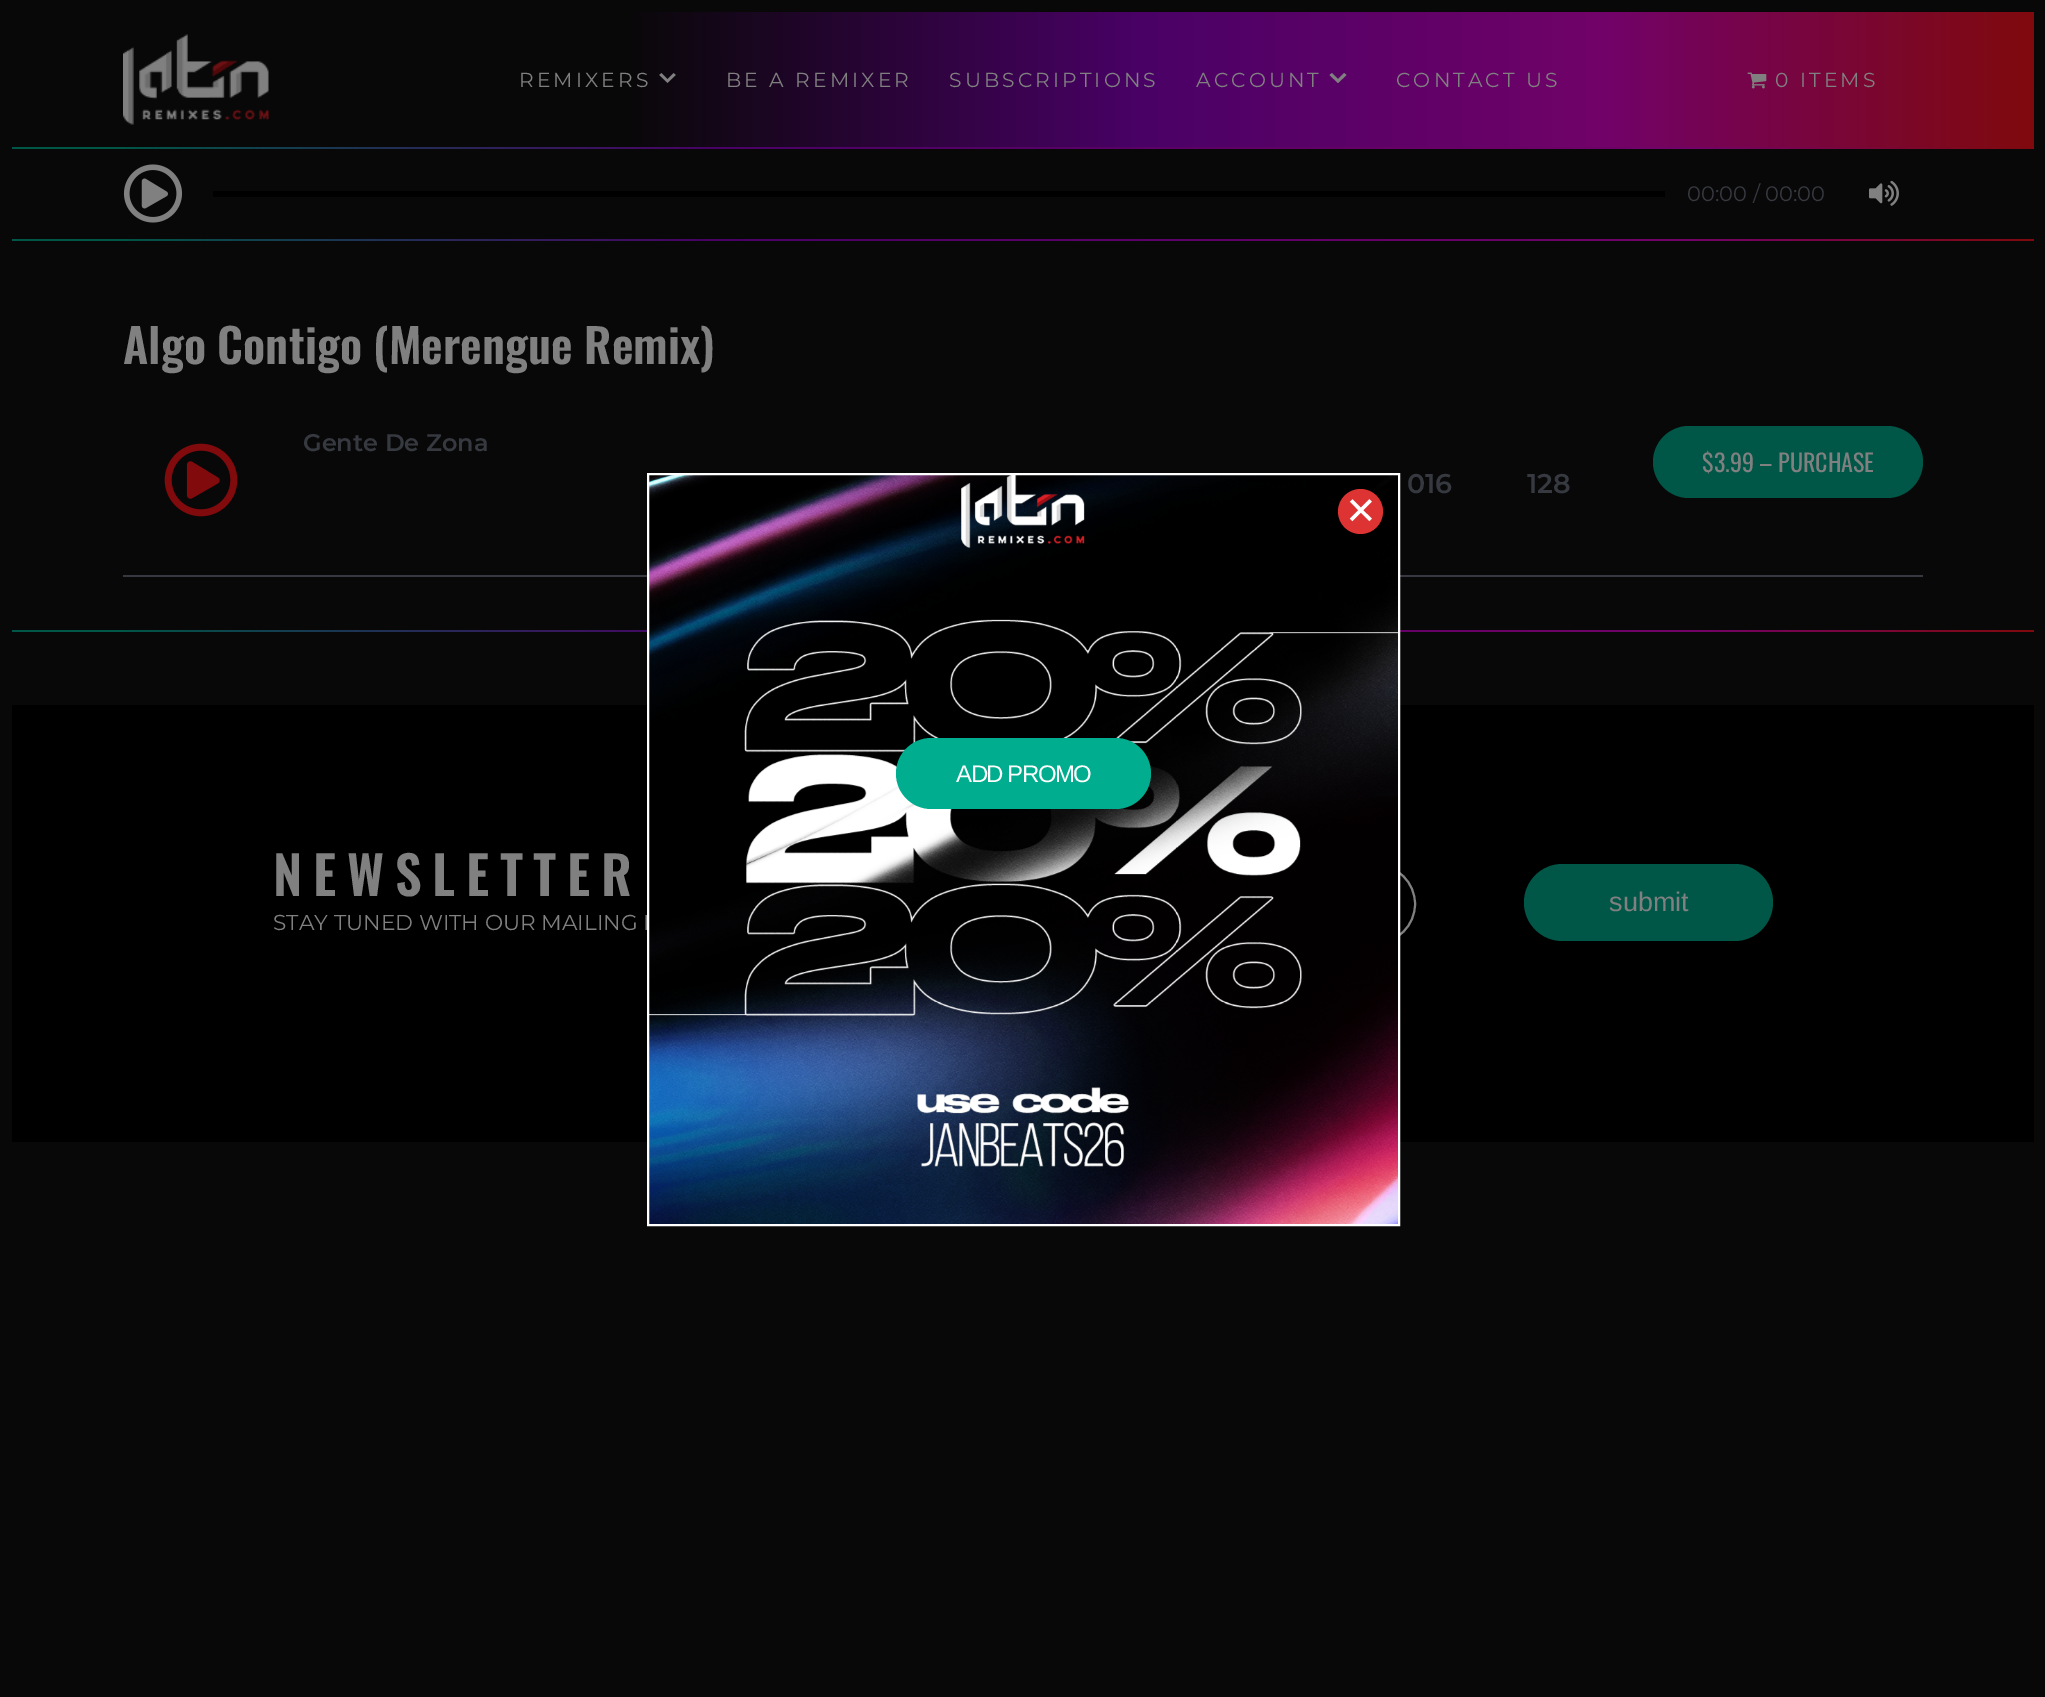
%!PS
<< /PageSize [2045 1697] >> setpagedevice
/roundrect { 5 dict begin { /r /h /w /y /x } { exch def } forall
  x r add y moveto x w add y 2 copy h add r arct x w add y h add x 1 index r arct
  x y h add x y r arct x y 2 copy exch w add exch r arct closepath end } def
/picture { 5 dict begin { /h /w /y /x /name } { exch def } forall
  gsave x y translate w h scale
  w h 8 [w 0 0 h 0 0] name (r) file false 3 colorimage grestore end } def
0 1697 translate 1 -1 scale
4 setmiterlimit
0.031 setgray
0 0 2045 1697 rectfill
gsave newpath 633 12 moveto 2034 12 lineto 2034 147 lineto 633 147 lineto closepath clip newpath
<< /ShadingType 2 /ColorSpace /DeviceRGB /Coords [12 80 2034 79] /Extend [true true] /Function << /FunctionType 3 /Domain [0 1] /Functions [<< /FunctionType 2 /Domain [0 1] /C0 [0.031 0.031 0.031] /C1 [0.031 0.031 0.031] /N 1 >> << /FunctionType 2 /Domain [0 1] /C0 [0.031 0.031 0.031] /C1 [0.29 0.004 0.4] /N 1 >> << /FunctionType 2 /Domain [0 1] /C0 [0.29 0.004 0.4] /C1 [0.447 0.008 0.408] /N 1 >> << /FunctionType 2 /Domain [0 1] /C0 [0.447 0.008 0.408] /C1 [0.502 0.039 0.051] /N 1 >>] /Bounds [0.3 0.56 0.79] /Encode [0 1 0 1 0 1 0 1] >> >> shfill grestore
(img1.rgb) 123 34 146 91 picture
/Montserrat-Regular [20.25 0 0 -20.25 0 0] selectfont
0.502 setgray
519 87 moveto 3.1 0 (REMIXERS) ashow
(img2.rgb) 659 73 17 10 picture
726 87 moveto 3.1 0 (BE A REMIXER) ashow
949 87 moveto 3.1 0 (SUBSCRIPTIONS) ashow
1196 87 moveto 3.1 0 (ACCOUNT) ashow
newpath 1338 83 moveto 1329.5 75 lineto 1332 73 lineto 1338 79 lineto 1344 73 lineto 1346.5 75 lineto closepath fill
1396 87 moveto 3.1 0 (CONTACT US) ashow
(img3.rgb) 1747 72 20 17 picture
1775 87 moveto 3.1 0 (0 ITEMS) ashow
gsave newpath 12 147 moveto 2034 147 lineto 2034 149 lineto 12 149 lineto closepath clip newpath
<< /ShadingType 2 /ColorSpace /DeviceRGB /Coords [12 148 2034 148] /Extend [true true] /Function << /FunctionType 3 /Domain [0 1] /Functions [<< /FunctionType 2 /Domain [0 1] /C0 [0 0.341 0.278] /C1 [0 0.341 0.278] /N 1 >> << /FunctionType 2 /Domain [0 1] /C0 [0 0.341 0.278] /C1 [0.29 0.004 0.4] /N 1 >> << /FunctionType 2 /Domain [0 1] /C0 [0.29 0.004 0.4] /C1 [0.447 0.008 0.408] /N 1 >> << /FunctionType 2 /Domain [0 1] /C0 [0.447 0.008 0.408] /C1 [0.502 0.039 0.051] /N 1 >>] /Bounds [0.05 0.35 0.83] /Encode [0 1 0 1 0 1 0 1] >> >> shfill grestore
(img4.rgb) 123 164 60 59 picture
0 setgray
213 191 1452 6 rectfill
/Montserrat-Regular [21 0 0 -21 0 0] selectfont
0.212 0.224 0.251 setrgbcolor
1687 201 moveto (00:00 / 00:00) show
(img5.rgb) 1869 180 30 26 picture
gsave newpath 12 239 moveto 2034 239 lineto 2034 241 lineto 12 241 lineto closepath clip newpath
<< /ShadingType 2 /ColorSpace /DeviceRGB /Coords [12 239 2034 239] /Extend [true true] /Function << /FunctionType 3 /Domain [0 1] /Functions [<< /FunctionType 2 /Domain [0 1] /C0 [0 0.341 0.278] /C1 [0 0.341 0.278] /N 1 >> << /FunctionType 2 /Domain [0 1] /C0 [0 0.341 0.278] /C1 [0.29 0.004 0.4] /N 1 >> << /FunctionType 2 /Domain [0 1] /C0 [0.29 0.004 0.4] /C1 [0.447 0.008 0.408] /N 1 >> << /FunctionType 2 /Domain [0 1] /C0 [0.447 0.008 0.408] /C1 [0.502 0.039 0.051] /N 1 >>] /Bounds [0.05 0.35 0.83] /Encode [0 1 0 1 0 1 0 1] >> >> shfill grestore
/Oswald-SemiBold [46.9 0 0 -46.9 0 0] selectfont
0.502 setgray
123 364 moveto (Algo Contigo \(Merengue Remix\)) show
0.212 0.224 0.251 setrgbcolor
123 575 1800 2 rectfill
(img6.rgb) 164 443 74 74 picture
/Montserrat-SemiBold [24 0 0 -24 0 0] selectfont
303 451 moveto (Gente De Zona) show
0 0.341 0.278 setrgbcolor
1653 426 270 72 36 roundrect fill
/Oswald-Regular [24 0 0 -24 0 0] selectfont
0.502 setgray
1702 472 moveto ($3.99 – PURCHASE) show
/Montserrat-SemiBold [27 0 0 -27 0 0] selectfont
0.212 0.224 0.251 setrgbcolor
1407 493 moveto (016) show
1527 493 moveto (128) show
gsave newpath 12 630 moveto 2034 630 lineto 2034 632 lineto 12 632 lineto closepath clip newpath
<< /ShadingType 2 /ColorSpace /DeviceRGB /Coords [12 631 2034 631] /Extend [true true] /Function << /FunctionType 3 /Domain [0 1] /Functions [<< /FunctionType 2 /Domain [0 1] /C0 [0 0.341 0.278] /C1 [0 0.341 0.278] /N 1 >> << /FunctionType 2 /Domain [0 1] /C0 [0 0.341 0.278] /C1 [0.29 0.004 0.4] /N 1 >> << /FunctionType 2 /Domain [0 1] /C0 [0.29 0.004 0.4] /C1 [0.447 0.008 0.408] /N 1 >> << /FunctionType 2 /Domain [0 1] /C0 [0.447 0.008 0.408] /C1 [0.502 0.039 0.051] /N 1 >>] /Bounds [0.05 0.35 0.83] /Encode [0 1 0 1 0 1 0 1] >> >> shfill grestore
0 setgray
12 705 2022 437 rectfill
/Montserrat-Regular [21.6 0 0 -21.6 0 0] selectfont
0.502 setgray
273 930 moveto (STAY TUNED WITH OUR MAILING L) show
2 setlinewidth
799 865 616 78 39 roundrect stroke
(img7.rgb) 649 475 749 749 picture
1 setgray
648 474 751 751 rectstroke
0.867 0.2 0.2 setrgbcolor
newpath 1360.5 511.5 22.5 0 360 arc closepath fill
/DejaVuSans-Regular [38 0 0 -38 0 0] selectfont
1 setgray
1345 524 moveto (✕) show
0 0.678 0.557 setrgbcolor
896 738 255 71 35.5 roundrect fill
/LiberationSans-Regular [24 0 0 -24 0 0] selectfont
1 setgray
956 782 moveto -1.5 0 (ADD PROMO) ashow
/Oswald-SemiBold [52.75 0 0 -52.75 0 0] selectfont
0.502 setgray
273 896 moveto 10.75 0 (NEWSLETTER) ashow
0 0.341 0.278 setrgbcolor
1524 864 249 77 38.5 roundrect fill
/LiberationSans-Regular [27 0 0 -27 0 0] selectfont
0.502 setgray
1609 911 moveto (submit) show
showpage
